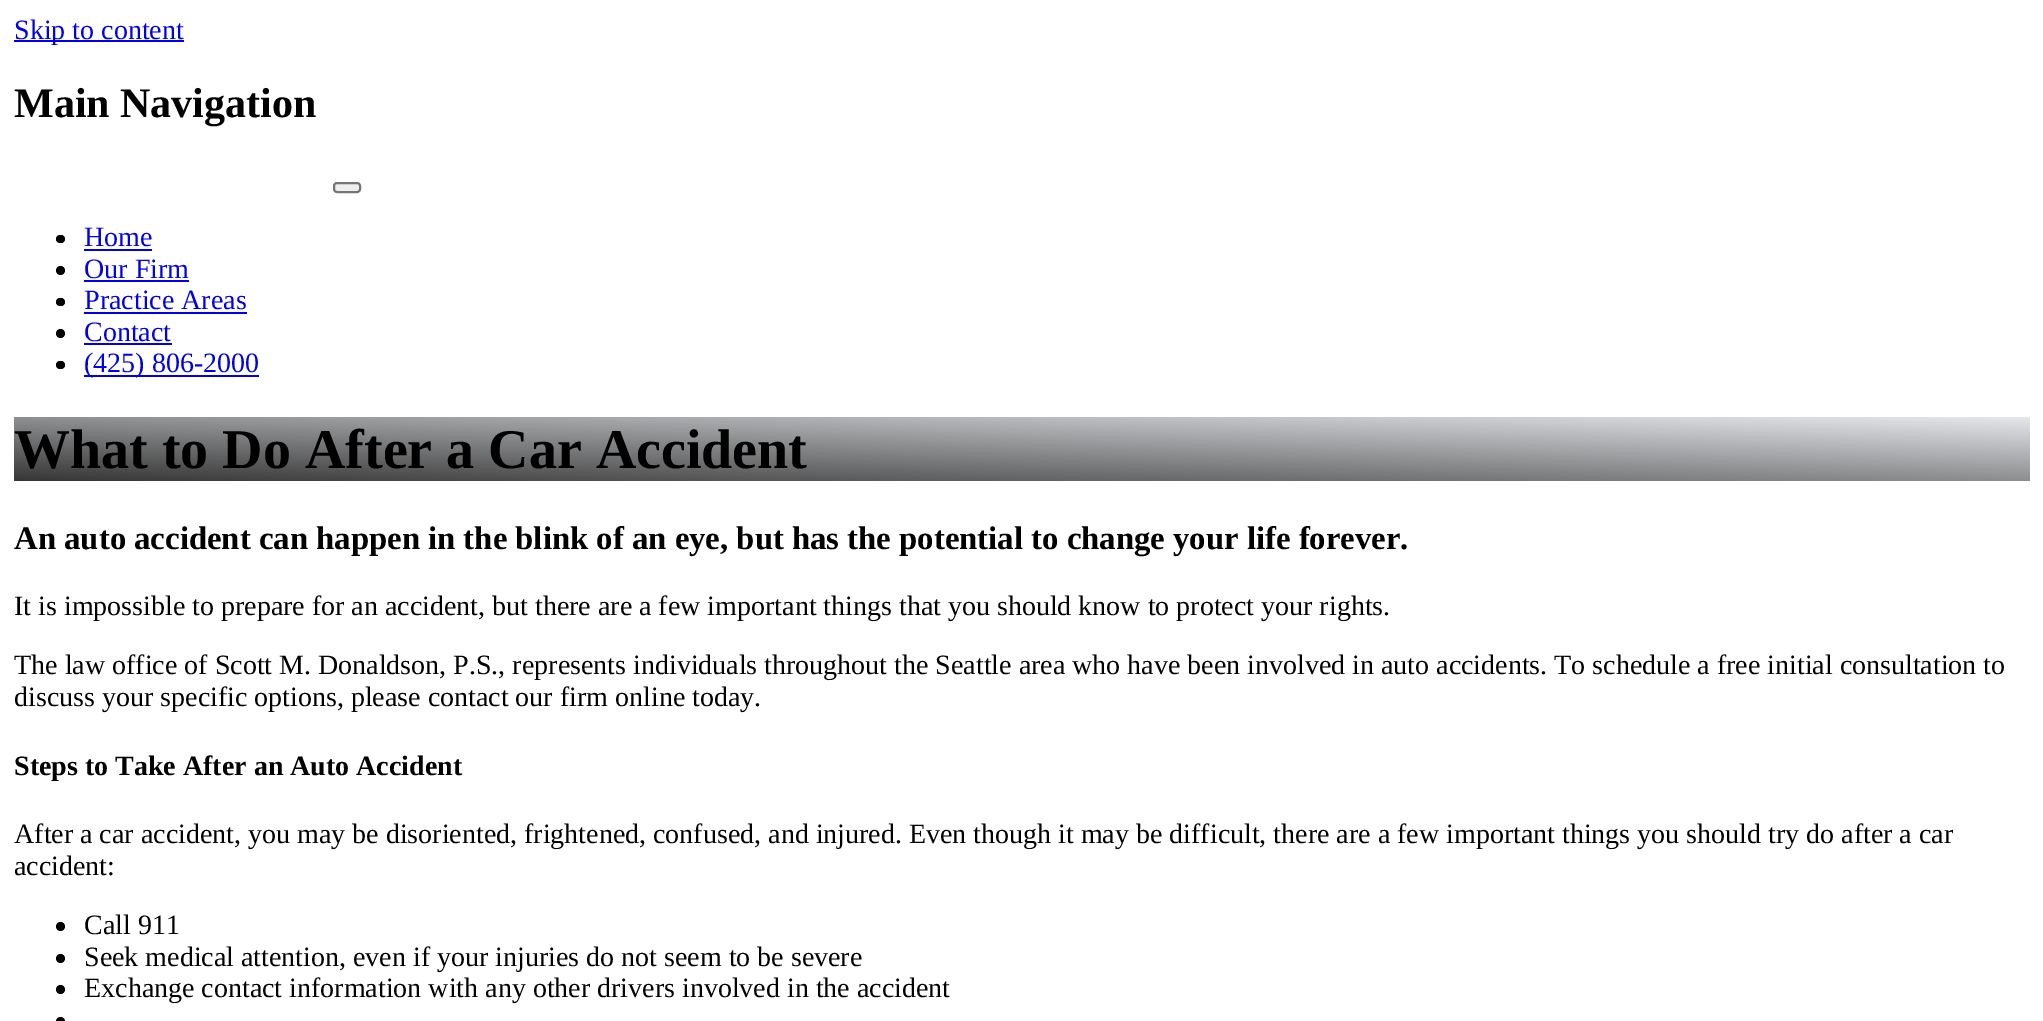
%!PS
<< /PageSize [2043 1021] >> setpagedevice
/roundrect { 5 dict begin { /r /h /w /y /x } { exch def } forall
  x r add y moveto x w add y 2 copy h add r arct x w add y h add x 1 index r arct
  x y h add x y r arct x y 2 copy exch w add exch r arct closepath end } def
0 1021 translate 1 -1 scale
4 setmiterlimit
1 setgray
0 0 2043 1021 rectfill
0 0 0.933 setrgbcolor
14 40 170 2 rectfill
/LiberationSerif-Regular [28 0 0 -28 0 0] selectfont
14 39 moveto (Skip to content) show
/LiberationSerif-Bold [42 0 0 -42 0 0] selectfont
0 setgray
14 117 moveto (Main Navigation) show
0.937 setgray
334 183 26 9 3 roundrect gsave fill grestore
0.463 setgray
2 setlinewidth
stroke
0 setgray
56 235 9 8 4 roundrect fill
/LiberationSerif-Regular [28 0 0 -28 0 0] selectfont
0 0 0.933 setrgbcolor
84 246 moveto (Home) show
84 249 68 2 rectfill
0 setgray
newpath 60.5 270.5 4.5 0 360 arc closepath fill
0 0 0.933 setrgbcolor
84 278 moveto (Our Firm) show
84 280 105 2 rectfill
0 setgray
56 298 9 8 4 roundrect fill
0 0 0.933 setrgbcolor
84 309 moveto (Practice Areas) show
84 312 163 2 rectfill
0 setgray
newpath 60.5 333.5 4.5 0 360 arc closepath fill
0 0 0.933 setrgbcolor
84 341 moveto (Contact) show
84 343 88 2 rectfill
0 setgray
56 361 9 8 4 roundrect fill
0 0 0.933 setrgbcolor
84 375 175 2 rectfill
84 372 moveto (\(425\) 806-2000) show
gsave newpath 14 417 moveto 2030 417 lineto 2030 481 lineto 14 481 lineto closepath clip newpath
<< /ShadingType 2 /ColorSpace /DeviceRGB /Coords [1024 384 1020 514] /Extend [true true] /Function << /FunctionType 2 /Domain [0 1] /C0 [0.91 0.918 0.933] /C1 [0.2 0.2 0.2] /N 1 >> >> shfill grestore
/LiberationSerif-Bold [56 0 0 -56 0 0] selectfont
0 setgray
14 468 moveto (What to Do After a Car Accident) show
/LiberationSerif-Bold [32.75 0 0 -32.75 0 0] selectfont
14 549 moveto (An auto accident can happen in the blink of an eye, but has the potential to change your life forever.) show
/LiberationSerif-Regular [28 0 0 -28 0 0] selectfont
14 615 moveto (It is impossible to prepare for an accident, but there are a few important things that you should know to protect your rights.) show
14 674 moveto (The law office of Scott M. Donaldson, P.S., represents individuals throughout the Seattle area who have been involved in auto accidents. To schedule a free initial consultation to) show
14 706 moveto (discuss your specific options, please contact our firm online today.) show
/LiberationSerif-Bold [28 0 0 -28 0 0] selectfont
14 775 moveto (Steps to Take After an Auto Accident) show
/LiberationSerif-Regular [28 0 0 -28 0 0] selectfont
14 843 moveto (After a car accident, you may be disoriented, frightened, confused, and injured. Even though it may be difficult, there are a few important things you should try do after a car) show
14 875 moveto (accident:) show
newpath 60.5 926.5 4.5 0 360 arc closepath fill
84 934 moveto (Call 911) show
newpath 60.5 958.5 4.5 0 360 arc closepath fill
84 966 moveto (Seek medical attention, even if your injuries do not seem to be severe) show
newpath 60.5 989.5 4.5 0 360 arc closepath fill
84 997 moveto (Exchange contact information with any other drivers involved in the accident) show
newpath 60.5 1021.5 4.5 0 360 arc closepath fill
showpage
